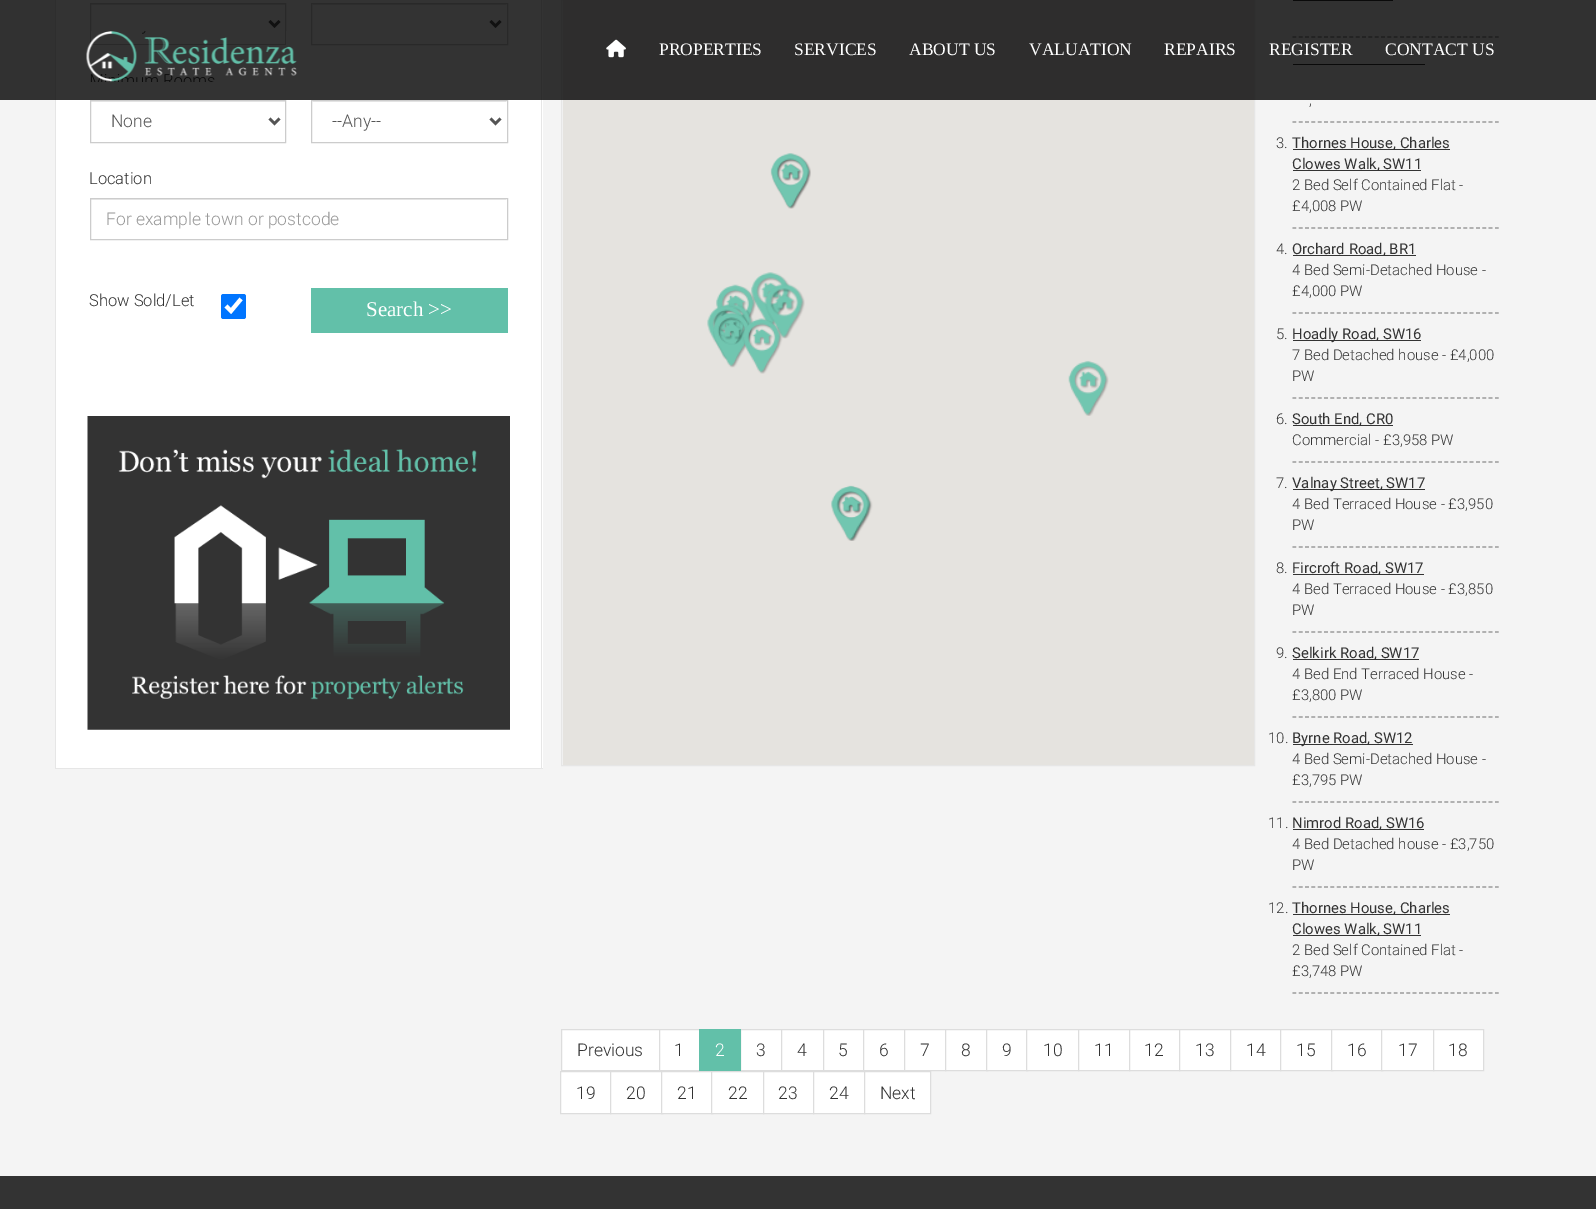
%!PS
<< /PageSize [1596 1209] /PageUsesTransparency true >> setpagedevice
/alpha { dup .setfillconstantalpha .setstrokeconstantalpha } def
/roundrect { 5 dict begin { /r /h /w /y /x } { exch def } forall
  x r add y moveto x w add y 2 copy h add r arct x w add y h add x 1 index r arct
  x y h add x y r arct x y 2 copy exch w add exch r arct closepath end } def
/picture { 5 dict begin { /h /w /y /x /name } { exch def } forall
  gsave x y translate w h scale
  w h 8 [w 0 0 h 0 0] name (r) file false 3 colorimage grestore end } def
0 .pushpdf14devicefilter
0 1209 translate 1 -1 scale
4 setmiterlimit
0.957 setgray
0 0 1596 1209 rectfill
1 setgray
56 0 487 768 rectfill
0.902 setgray
541 0 1 769 rectfill
55 768 488 1 rectfill
55 0 1 769 rectfill
0.925 setgray
91 4 194 1 rectfill
0.8 setgray
90.5 3.5 195 41 rectstroke
0.333 setgray
2.5 setlinewidth
newpath 269.5 21 moveto 274.5 26 lineto 279.5 21 lineto stroke
0.925 setgray
313 4 193 1 rectfill
0.8 setgray
1 setlinewidth
311.5 3.5 196 41 rectstroke
0.333 setgray
2.5 setlinewidth
newpath 490.5 21 moveto 495.5 26 lineto 500.5 21 lineto stroke
0.902 setgray
1 setlinewidth
561.5 -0.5 693 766 rectstroke
0.898 0.89 0.875 setrgbcolor
563 0 691 765 rectfill
0.6 setgray
1.2 setlinewidth
[3.75 2.58] 0 setdash
newpath 1292.5 37 moveto 1499 37 lineto stroke
0.2 setgray
1293 0 100 1 rectfill
1293 64 132 1 rectfill
0.8 alpha
0 setgray
0 0 1596 100 rectfill
1 alpha
(img1.rgb) 86 31 211 51 picture
(img2.rgb) 606 39 20 19 picture
/LiberationSerif-Regular [17.5 0 0 -17.5 0 0] selectfont
1 setgray
659 55 moveto (PROPERTIES) show
794 55 moveto (SERVICES) show
909 55 moveto (ABOUT US) show
1029 55 moveto (VALUATION) show
1164 55 moveto (REPAIRS) show
1269 55 moveto (REGISTER) show
1385 55 moveto (CONTACT US) show
0.925 setgray
91 101 194 1 rectfill
0.8 setgray
1 setlinewidth
[] 0 setdash
90.5 100.5 195 42 rectstroke
0.333 setgray
2.5 setlinewidth
newpath 269.5 118.5 moveto 274.5 123.5 lineto 279.5 118.5 lineto stroke
/Roboto-Light [17.5 0 0 -17.5 0 0] selectfont
111 127 moveto (None) show
0.925 setgray
313 101 193 1 rectfill
0.8 setgray
1 setlinewidth
311.5 100.5 196 42 rectstroke
0.333 setgray
2.5 setlinewidth
newpath 490.5 118.5 moveto 495.5 123.5 lineto 500.5 118.5 lineto stroke
332 127 moveto (--Any--) show
/Roboto-Light [16.5 0 0 -16.5 0 0] selectfont
0.2 setgray
89 184 moveto (Location) show
0.925 setgray
91 199 415 1 rectfill
0.8 setgray
1 setlinewidth
90.5 198.5 417 41 rectstroke
/Roboto-Light [17.5 0 0 -17.5 0 0] selectfont
0.6 setgray
106 225 moveto (For example town or postcode) show
/Roboto-Light [16.5 0 0 -16.5 0 0] selectfont
0.2 setgray
89 306 moveto (Show Sold/Let) show
0 0.459 1 setrgbcolor
221 294 25 25 2.5 roundrect fill
1 setgray
4 setlinewidth
newpath 226 306 moveto 231 311 lineto 241 299 lineto stroke
0.384 0.753 0.663 setrgbcolor
311 288 197 45 rectfill
/LiberationSerif-Regular [21 0 0 -21 0 0] selectfont
1 setgray
366 316 moveto (Search >>) show
(img3.rgb) 87 416 423 314 picture
(img4.rgb) 770 153 41 56 picture
(img5.rgb) 771 153 40 56 picture
(img6.rgb) 751 272 40 55 picture
(img7.rgb) 716 284 40 53 picture
(img8.rgb) 764 283 41 56 picture
(img9.rgb) 713 303 41 56 picture
(img10.rgb) 707 304 40 56 picture
(img11.rgb) 713 312 40 56 picture
(img12.rgb) 742 318 41 56 picture
(img13.rgb) 1068 360 41 56 picture
(img15.rgb) 832 485 41 56 picture
(img14.rgb) 831 485 40 56 picture
0.6 setgray
1.2 setlinewidth
[3.75 2.58] 0 setdash
newpath 1292.5 122 moveto 1499 122 lineto stroke
/Roboto-Light [14.9 0 0 -14.9 0 0] selectfont
0.2 setgray
1309 105 moveto (,) show
0.6 setgray
newpath 1292.5 228 moveto 1499 228 lineto stroke
0.2 setgray
1276 148 moveto (3.) show
1293 149 157 1 rectfill
/Roboto-Regular [14.9 0 0 -14.9 0 0] selectfont
1292 148 moveto (Thornes House, Charles) show
1293 170 128 1 rectfill
1292 169 moveto (Clowes Walk, SW11) show
/Roboto-Light [14.9 0 0 -14.9 0 0] selectfont
1292 190 moveto (2 Bed Self Contained Flat -) show
1292 211 moveto (£4,008 PW) show
0.6 setgray
newpath 1292.5 313 moveto 1499 313 lineto stroke
0.2 setgray
1276 254 moveto (4.) show
1293 255 123 1 rectfill
/Roboto-Regular [14.9 0 0 -14.9 0 0] selectfont
1292 254 moveto (Orchard Road, BR1) show
/Roboto-Light [14.9 0 0 -14.9 0 0] selectfont
1292 275 moveto (4 Bed Semi-Detached House -) show
1292 296 moveto (£4,000 PW) show
0.6 setgray
newpath 1292.5 398 moveto 1499 398 lineto stroke
0.2 setgray
1276 339 moveto (5.) show
1293 340 128 1 rectfill
/Roboto-Regular [14.9 0 0 -14.9 0 0] selectfont
1292 339 moveto (Hoadly Road, SW16) show
/Roboto-Light [14.9 0 0 -14.9 0 0] selectfont
1292 360 moveto (7 Bed Detached house - £4,000) show
1292 381 moveto (PW) show
0.6 setgray
newpath 1292.5 462 moveto 1499 462 lineto stroke
0.2 setgray
1276 424 moveto (6.) show
1293 425 100 1 rectfill
/Roboto-Regular [14.9 0 0 -14.9 0 0] selectfont
1292 424 moveto (South End, CR0) show
/Roboto-Light [14.9 0 0 -14.9 0 0] selectfont
1292 445 moveto (Commercial - £3,958 PW) show
0.6 setgray
newpath 1292.5 547 moveto 1499 547 lineto stroke
0.2 setgray
1276 488 moveto (7.) show
1293 489 132 1 rectfill
/Roboto-Regular [14.9 0 0 -14.9 0 0] selectfont
1292 488 moveto (Valnay Street, SW17) show
/Roboto-Light [14.9 0 0 -14.9 0 0] selectfont
1292 509 moveto (4 Bed Terraced House - £3,950) show
1292 530 moveto (PW) show
0.6 setgray
newpath 1292.5 632 moveto 1499 632 lineto stroke
0.2 setgray
1276 573 moveto (8.) show
1293 574 131 1 rectfill
/Roboto-Regular [14.9 0 0 -14.9 0 0] selectfont
1292 573 moveto (Fircroft Road, SW17) show
/Roboto-Light [14.9 0 0 -14.9 0 0] selectfont
1292 594 moveto (4 Bed Terraced House - £3,850) show
1292 615 moveto (PW) show
0.6 setgray
newpath 1292.5 717 moveto 1499 717 lineto stroke
0.2 setgray
1276 658 moveto (9.) show
1293 659 126 1 rectfill
/Roboto-Regular [14.9 0 0 -14.9 0 0] selectfont
1292 658 moveto (Selkirk Road, SW17) show
/Roboto-Light [14.9 0 0 -14.9 0 0] selectfont
1292 679 moveto (4 Bed End Terraced House -) show
1292 700 moveto (£3,800 PW) show
0.6 setgray
newpath 1292.5 802 moveto 1499 802 lineto stroke
0.2 setgray
1268 743 moveto (10.) show
1293 744 120 1 rectfill
/Roboto-Regular [14.9 0 0 -14.9 0 0] selectfont
1292 743 moveto (Byrne Road, SW12) show
/Roboto-Light [14.9 0 0 -14.9 0 0] selectfont
1292 764 moveto (4 Bed Semi-Detached House -) show
1292 785 moveto (£3,795 PW) show
0.6 setgray
newpath 1292.5 887 moveto 1499 887 lineto stroke
0.2 setgray
1268 828 moveto (11.) show
1293 829 131 1 rectfill
/Roboto-Regular [14.9 0 0 -14.9 0 0] selectfont
1292 828 moveto (Nimrod Road, SW16) show
/Roboto-Light [14.9 0 0 -14.9 0 0] selectfont
1292 849 moveto (4 Bed Detached house - £3,750) show
1292 870 moveto (PW) show
0.6 setgray
newpath 1292.5 993 moveto 1499 993 lineto stroke
0.2 setgray
1268 913 moveto (12.) show
1293 914 157 1 rectfill
/Roboto-Regular [14.9 0 0 -14.9 0 0] selectfont
1292 913 moveto (Thornes House, Charles) show
1293 935 128 1 rectfill
1292 934 moveto (Clowes Walk, SW11) show
/Roboto-Light [14.9 0 0 -14.9 0 0] selectfont
1292 955 moveto (2 Bed Self Contained Flat -) show
1292 976 moveto (£3,748 PW) show
1 setgray
newpath 561.5 1029.5 moveto 659.5 1029.5 lineto 659.5 1070.5 lineto 561.5 1070.5 lineto closepath gsave fill grestore
0.867 setgray
1 setlinewidth
[] 0 setdash
stroke
/Roboto-Light [17.5 0 0 -17.5 0 0] selectfont
0.2 setgray
577 1056 moveto (Previous) show
1 setgray
newpath 659.5 1029.5 moveto 699.5 1029.5 lineto 699.5 1070.5 lineto 659.5 1070.5 lineto closepath gsave fill grestore
0.867 setgray
stroke
0.2 setgray
674 1056 moveto (1) show
1 setgray
741 1030 40 40 rectfill
0.867 setgray
740.5 1029.5 42 41 rectstroke
0.384 0.753 0.663 setrgbcolor
699 1029 42 42 rectfill
1 setgray
715 1056 moveto (2) show
0.2 setgray
756 1056 moveto (3) show
1 setgray
newpath 781.5 1029.5 moveto 823.5 1029.5 lineto 823.5 1070.5 lineto 781.5 1070.5 lineto closepath gsave fill grestore
0.867 setgray
stroke
0.2 setgray
797 1056 moveto (4) show
1 setgray
newpath 823.5 1029.5 moveto 863.5 1029.5 lineto 863.5 1070.5 lineto 823.5 1070.5 lineto closepath gsave fill grestore
0.867 setgray
stroke
0.2 setgray
838 1056 moveto (5) show
1 setgray
newpath 863.5 1029.5 moveto 904.5 1029.5 lineto 904.5 1070.5 lineto 863.5 1070.5 lineto closepath gsave fill grestore
0.867 setgray
stroke
0.2 setgray
879 1056 moveto (6) show
1 setgray
newpath 904.5 1029.5 moveto 945.5 1029.5 lineto 945.5 1070.5 lineto 904.5 1070.5 lineto closepath gsave fill grestore
0.867 setgray
stroke
0.2 setgray
920 1056 moveto (7) show
1 setgray
946 1030 40 40 rectfill
0.867 setgray
945.5 1029.5 42 41 rectstroke
0.2 setgray
961 1056 moveto (8) show
1 setgray
987 1030 39 40 rectfill
0.867 setgray
986.5 1029.5 41 41 rectstroke
0.2 setgray
1002 1056 moveto (9) show
1 setgray
newpath 1026.5 1029.5 moveto 1078.5 1029.5 lineto 1078.5 1070.5 lineto 1026.5 1070.5 lineto closepath gsave fill grestore
0.867 setgray
stroke
0.2 setgray
1043 1056 moveto (10) show
1 setgray
newpath 1078.5 1029.5 moveto 1129.5 1029.5 lineto 1129.5 1070.5 lineto 1078.5 1070.5 lineto closepath gsave fill grestore
0.867 setgray
stroke
0.2 setgray
1094 1056 moveto (11) show
1 setgray
newpath 1129.5 1029.5 moveto 1179.5 1029.5 lineto 1179.5 1070.5 lineto 1129.5 1070.5 lineto closepath gsave fill grestore
0.867 setgray
stroke
0.2 setgray
1144 1056 moveto (12) show
1 setgray
newpath 1179.5 1029.5 moveto 1230.5 1029.5 lineto 1230.5 1070.5 lineto 1179.5 1070.5 lineto closepath gsave fill grestore
0.867 setgray
stroke
0.2 setgray
1195 1056 moveto (13) show
1 setgray
newpath 1230.5 1029.5 moveto 1280.5 1029.5 lineto 1280.5 1070.5 lineto 1230.5 1070.5 lineto closepath gsave fill grestore
0.867 setgray
stroke
0.2 setgray
1246 1056 moveto (14) show
1 setgray
1281 1030 50 40 rectfill
0.867 setgray
1280.5 1029.5 52 41 rectstroke
0.2 setgray
1296 1056 moveto (15) show
1 setgray
1332 1030 49 40 rectfill
0.867 setgray
1331.5 1029.5 51 41 rectstroke
0.2 setgray
1347 1056 moveto (16) show
1 setgray
newpath 1381.5 1029.5 moveto 1433.5 1029.5 lineto 1433.5 1070.5 lineto 1381.5 1070.5 lineto closepath gsave fill grestore
0.867 setgray
stroke
0.2 setgray
1398 1056 moveto (17) show
1 setgray
newpath 1433.5 1029.5 moveto 1483.5 1029.5 lineto 1483.5 1070.5 lineto 1433.5 1070.5 lineto closepath gsave fill grestore
0.867 setgray
stroke
0.2 setgray
1448 1056 moveto (18) show
1 setgray
newpath 560.5 1071.5 moveto 610.5 1071.5 lineto 610.5 1113.5 lineto 560.5 1113.5 lineto closepath gsave fill grestore
0.867 setgray
stroke
0.2 setgray
576 1099 moveto (19) show
1 setgray
611 1072 50 41 rectfill
0.867 setgray
610.5 1071.5 52 42 rectstroke
0.2 setgray
626 1099 moveto (20) show
1 setgray
662 1072 49 41 rectfill
0.867 setgray
661.5 1071.5 51 42 rectstroke
0.2 setgray
677 1099 moveto (21) show
1 setgray
newpath 711.5 1071.5 moveto 763.5 1071.5 lineto 763.5 1113.5 lineto 711.5 1113.5 lineto closepath gsave fill grestore
0.867 setgray
stroke
0.2 setgray
728 1099 moveto (22) show
1 setgray
newpath 763.5 1071.5 moveto 813.5 1071.5 lineto 813.5 1113.5 lineto 763.5 1113.5 lineto closepath gsave fill grestore
0.867 setgray
stroke
0.2 setgray
778 1099 moveto (23) show
1 setgray
newpath 813.5 1071.5 moveto 864.5 1071.5 lineto 864.5 1113.5 lineto 813.5 1113.5 lineto closepath gsave fill grestore
0.867 setgray
stroke
0.2 setgray
829 1099 moveto (24) show
1 setgray
newpath 864.5 1071.5 moveto 930.5 1071.5 lineto 930.5 1113.5 lineto 864.5 1113.5 lineto closepath gsave fill grestore
0.867 setgray
stroke
0.2 setgray
880 1099 moveto (Next) show
0 1176 1596 33 rectfill
.poppdf14devicefilter showpage
